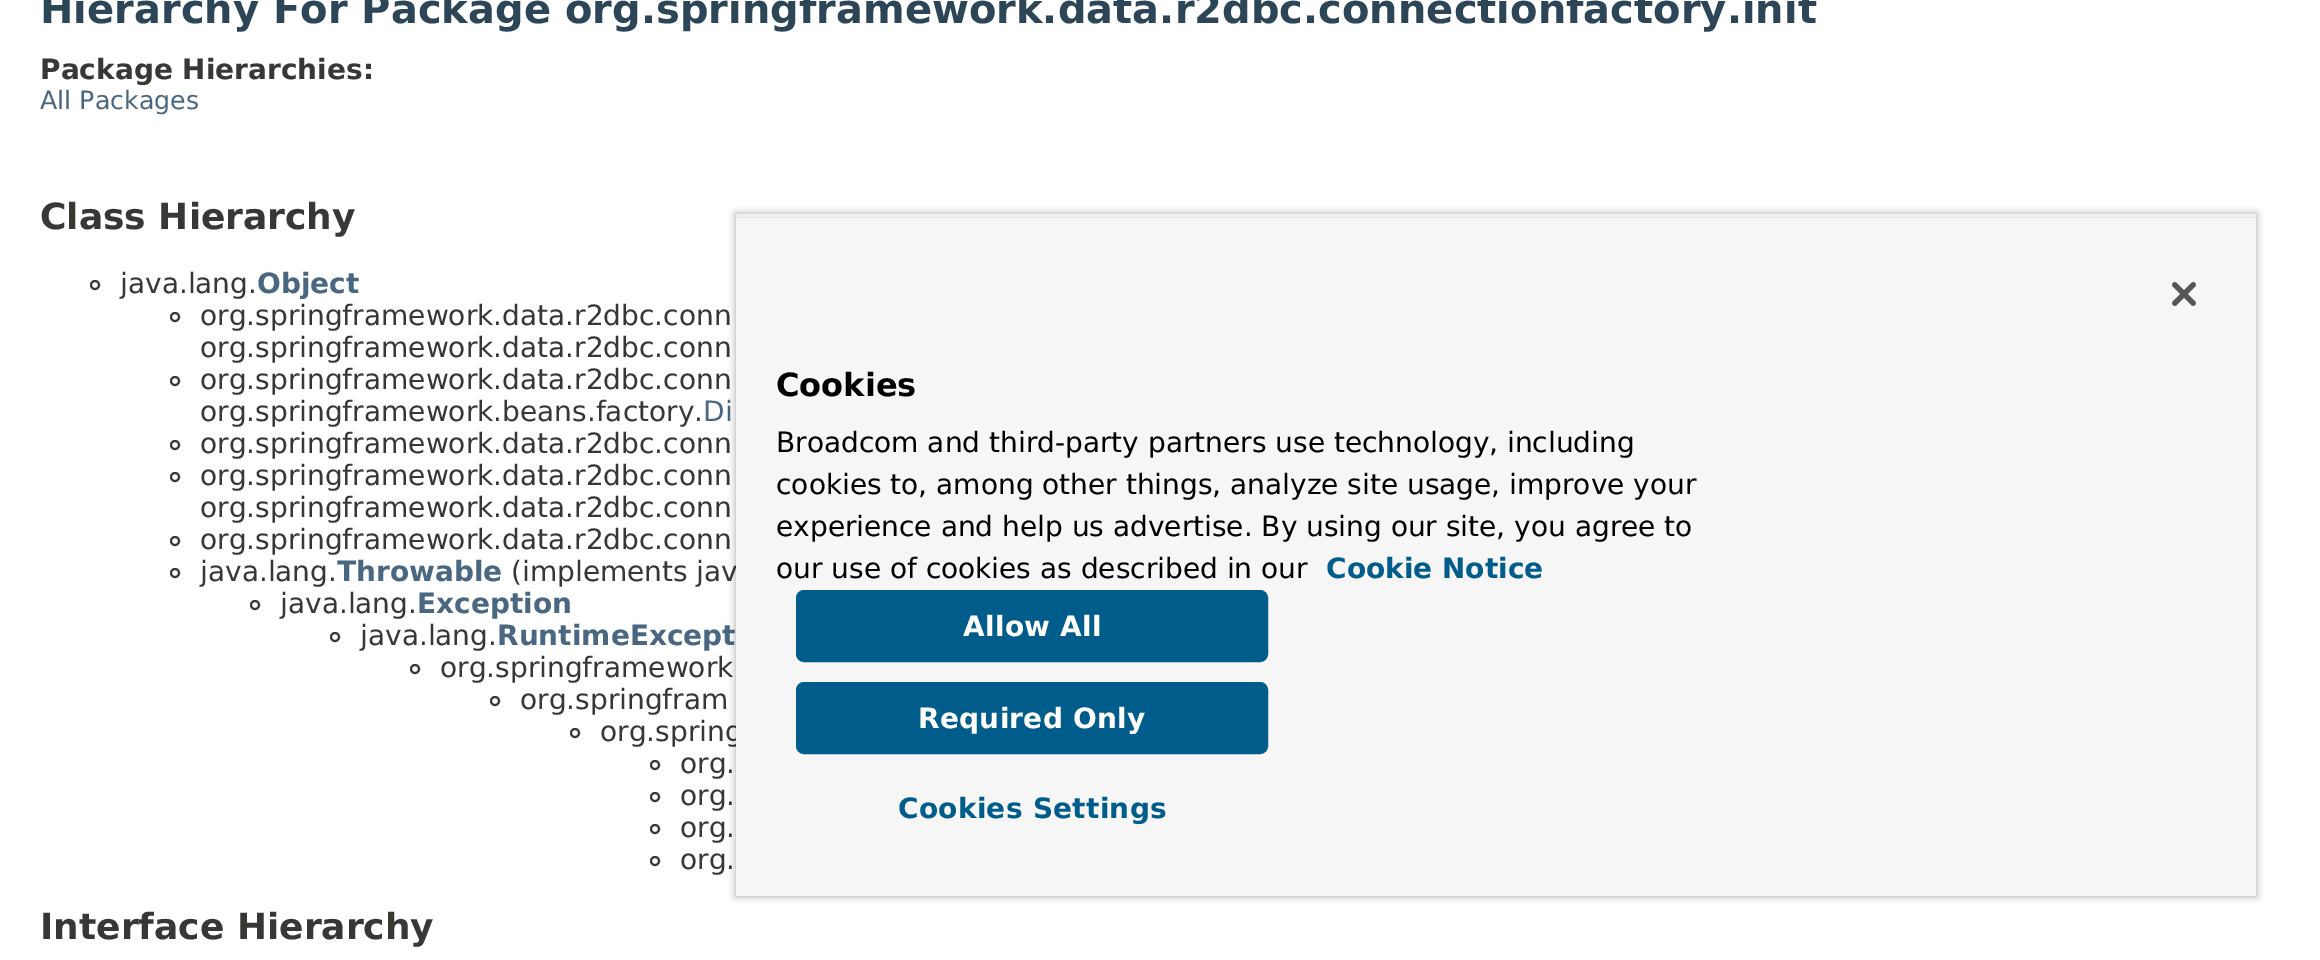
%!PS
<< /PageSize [2320 960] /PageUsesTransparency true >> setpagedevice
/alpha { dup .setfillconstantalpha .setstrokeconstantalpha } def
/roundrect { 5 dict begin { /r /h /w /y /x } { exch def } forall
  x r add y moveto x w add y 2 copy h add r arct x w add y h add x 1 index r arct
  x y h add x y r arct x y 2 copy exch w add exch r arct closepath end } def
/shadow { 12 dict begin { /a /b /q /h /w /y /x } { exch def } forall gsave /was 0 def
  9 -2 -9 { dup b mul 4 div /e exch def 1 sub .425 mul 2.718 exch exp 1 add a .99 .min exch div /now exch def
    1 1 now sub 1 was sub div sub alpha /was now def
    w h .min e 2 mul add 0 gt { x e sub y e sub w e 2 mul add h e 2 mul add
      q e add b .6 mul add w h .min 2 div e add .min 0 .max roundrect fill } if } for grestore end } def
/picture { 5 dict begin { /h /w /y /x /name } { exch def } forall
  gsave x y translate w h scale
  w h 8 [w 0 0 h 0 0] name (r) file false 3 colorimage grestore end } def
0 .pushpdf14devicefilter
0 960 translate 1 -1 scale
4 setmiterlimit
1 setgray
0 0 2320 960 rectfill
/DejaVuSans-Bold [40 0 0 -40 0 0] selectfont
0.173 0.271 0.341 setrgbcolor
40 23 moveto (Hierarchy For Package org.springframework.data.r2dbc.connectionfactory.init) show
/DejaVuSans-Bold [28 0 0 -28 0 0] selectfont
0.208 0.22 0.2 setrgbcolor
40 79 moveto (Package Hierarchies:) show
/DejaVuSans-Regular [25.25 0 0 -25.25 0 0] selectfont
0.29 0.404 0.51 setrgbcolor
40 109 moveto (All Packages) show
/DejaVuSans-Bold [36 0 0 -36 0 0] selectfont
0.208 0.22 0.2 setrgbcolor
40 229 moveto (Class Hierarchy) show
2 setlinewidth
newpath 95 285 4 0 360 arc closepath stroke
/DejaVuSans-Regular [28 0 0 -28 0 0] selectfont
120 293 moveto (java.lang.) show
/DejaVuSans-Bold [28 0 0 -28 0 0] selectfont
0.29 0.404 0.51 setrgbcolor
257 293 moveto (Object) show
0.208 0.22 0.2 setrgbcolor
newpath 175 317 4 0 360 arc closepath stroke
/DejaVuSans-Regular [28 0 0 -28 0 0] selectfont
200 325 moveto (org.springframework.data.r2dbc.conn) show
200 357 moveto (org.springframework.data.r2dbc.conn) show
newpath 175 381 4 0 360 arc closepath stroke
200 389 moveto (org.springframework.data.r2dbc.conn) show
200 421 moveto (org.springframework.beans.factory.) show
0.29 0.404 0.51 setrgbcolor
703 421 moveto (Di) show
0.208 0.22 0.2 setrgbcolor
newpath 175 445 4 0 360 arc closepath stroke
200 453 moveto (org.springframework.data.r2dbc.conn) show
newpath 175 477 4 0 360 arc closepath stroke
200 485 moveto (org.springframework.data.r2dbc.conn) show
200 517 moveto (org.springframework.data.r2dbc.conn) show
newpath 175 541 4 0 360 arc closepath stroke
200 549 moveto (org.springframework.data.r2dbc.conn) show
newpath 175 573 4 0 360 arc closepath stroke
200 581 moveto (java.lang.) show
/DejaVuSans-Bold [28 0 0 -28 0 0] selectfont
0.29 0.404 0.51 setrgbcolor
337 581 moveto (Throwable) show
/DejaVuSans-Regular [28 0 0 -28 0 0] selectfont
0.208 0.22 0.2 setrgbcolor
511 581 moveto (\(implements jav) show
newpath 255 605 4 0 360 arc closepath stroke
280 613 moveto (java.lang.) show
/DejaVuSans-Bold [28 0 0 -28 0 0] selectfont
0.29 0.404 0.51 setrgbcolor
417 613 moveto (Exception) show
0.208 0.22 0.2 setrgbcolor
newpath 335 637 4 0 360 arc closepath stroke
/DejaVuSans-Regular [28 0 0 -28 0 0] selectfont
360 645 moveto (java.lang.) show
/DejaVuSans-Bold [28 0 0 -28 0 0] selectfont
0.29 0.404 0.51 setrgbcolor
497 645 moveto (RuntimeExcept) show
0.208 0.22 0.2 setrgbcolor
newpath 415 669 4 0 360 arc closepath stroke
/DejaVuSans-Regular [28 0 0 -28 0 0] selectfont
440 677 moveto (org.springframework) show
newpath 495 701 4 0 360 arc closepath stroke
520 709 moveto (org.springfram) show
newpath 575 733 4 0 360 arc closepath stroke
600 741 moveto (org.spring) show
newpath 655 765 4 0 360 arc closepath stroke
680 773 moveto (org.) show
newpath 655 797 4 0 360 arc closepath stroke
680 805 moveto (org.) show
newpath 655 829 4 0 360 arc closepath stroke
680 837 moveto (org.) show
newpath 655 861 4 0 360 arc closepath stroke
680 869 moveto (org.) show
/DejaVuSans-Bold [36 0 0 -36 0 0] selectfont
40 939 moveto (Interface Hierarchy) show
gsave
newpath 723 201 moveto 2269 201 lineto 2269 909 lineto 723 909 lineto closepath 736 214 moveto 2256 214 lineto 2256 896 lineto 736 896 lineto closepath eoclip newpath
0 setgray
736 214 1520 682 0 4 0.35 shadow
grestore
gsave
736 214 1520 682 rectclip
0 setgray
736 218 1520 678 0 4 0.2 shadow
grestore
0.965 setgray
736 218 1520 678 rectfill
(img1.rgb) 2172 282 24 24 picture
/DejaVuSans-Bold [32 0 0 -32 0 0] selectfont
0 setgray
776 396 moveto (Cookies) show
/DejaVuSans-Regular [28 0 0 -28 0 0] selectfont
776 452 moveto (Broadcom and third-party partners use technology, including) show
776 494 moveto (cookies to, among other things, analyze site usage, improve your) show
776 536 moveto (experience and help us advertise. By using our site, you agree to) show
776 578 moveto (our use of cookies as described in our) show
/DejaVuSans-Bold [28 0 0 -28 0 0] selectfont
0 0.361 0.541 setrgbcolor
1326 578 moveto (Cookie Notice) show
797 591 470 70 7 roundrect gsave fill grestore
stroke
1 setgray
963 636 moveto 0.25 0 (Allow All) ashow
0 0.361 0.541 setrgbcolor
797 683 470 70 7 roundrect gsave fill grestore
stroke
1 setgray
918 728 moveto 0.25 0 (Required Only) ashow
0 0.361 0.541 setrgbcolor
898 818 moveto 0.25 0 (Cookies Settings) ashow
.poppdf14devicefilter showpage
